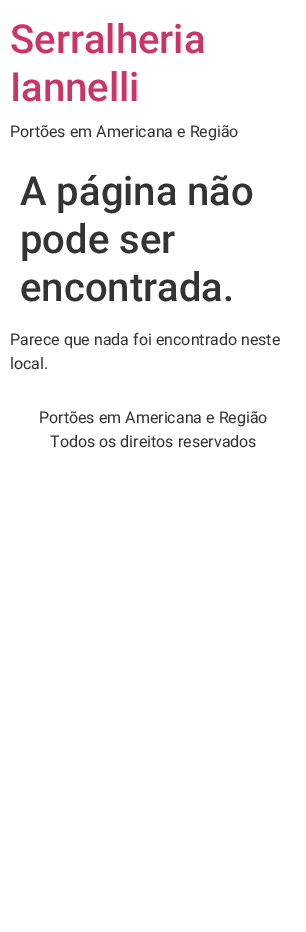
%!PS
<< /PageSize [306 932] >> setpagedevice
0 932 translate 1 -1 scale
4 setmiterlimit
1 setgray
0 0 306 932 rectfill
/Roboto-Medium [40 0 0 -40 0 0] selectfont
0.8 0.2 0.4 setrgbcolor
10 53 moveto (Serralheria) show
10 101 moveto (Iannelli) show
/Roboto-Regular [16 0 0 -16 0 0] selectfont
0.2 setgray
10 137 moveto (Portões em Americana e Região) show
/Roboto-Medium [40 0 0 -40 0 0] selectfont
20 205 moveto (A página não) show
20 253 moveto (pode ser) show
20 301 moveto (encontrada.) show
/Roboto-Regular [16 0 0 -16 0 0] selectfont
10 345 moveto (Parece que nada foi encontrado neste) show
10 369 moveto (local.) show
39 423 moveto (Portões em Americana e Região) show
50 447 moveto (Todos os direitos reservados) show
showpage
